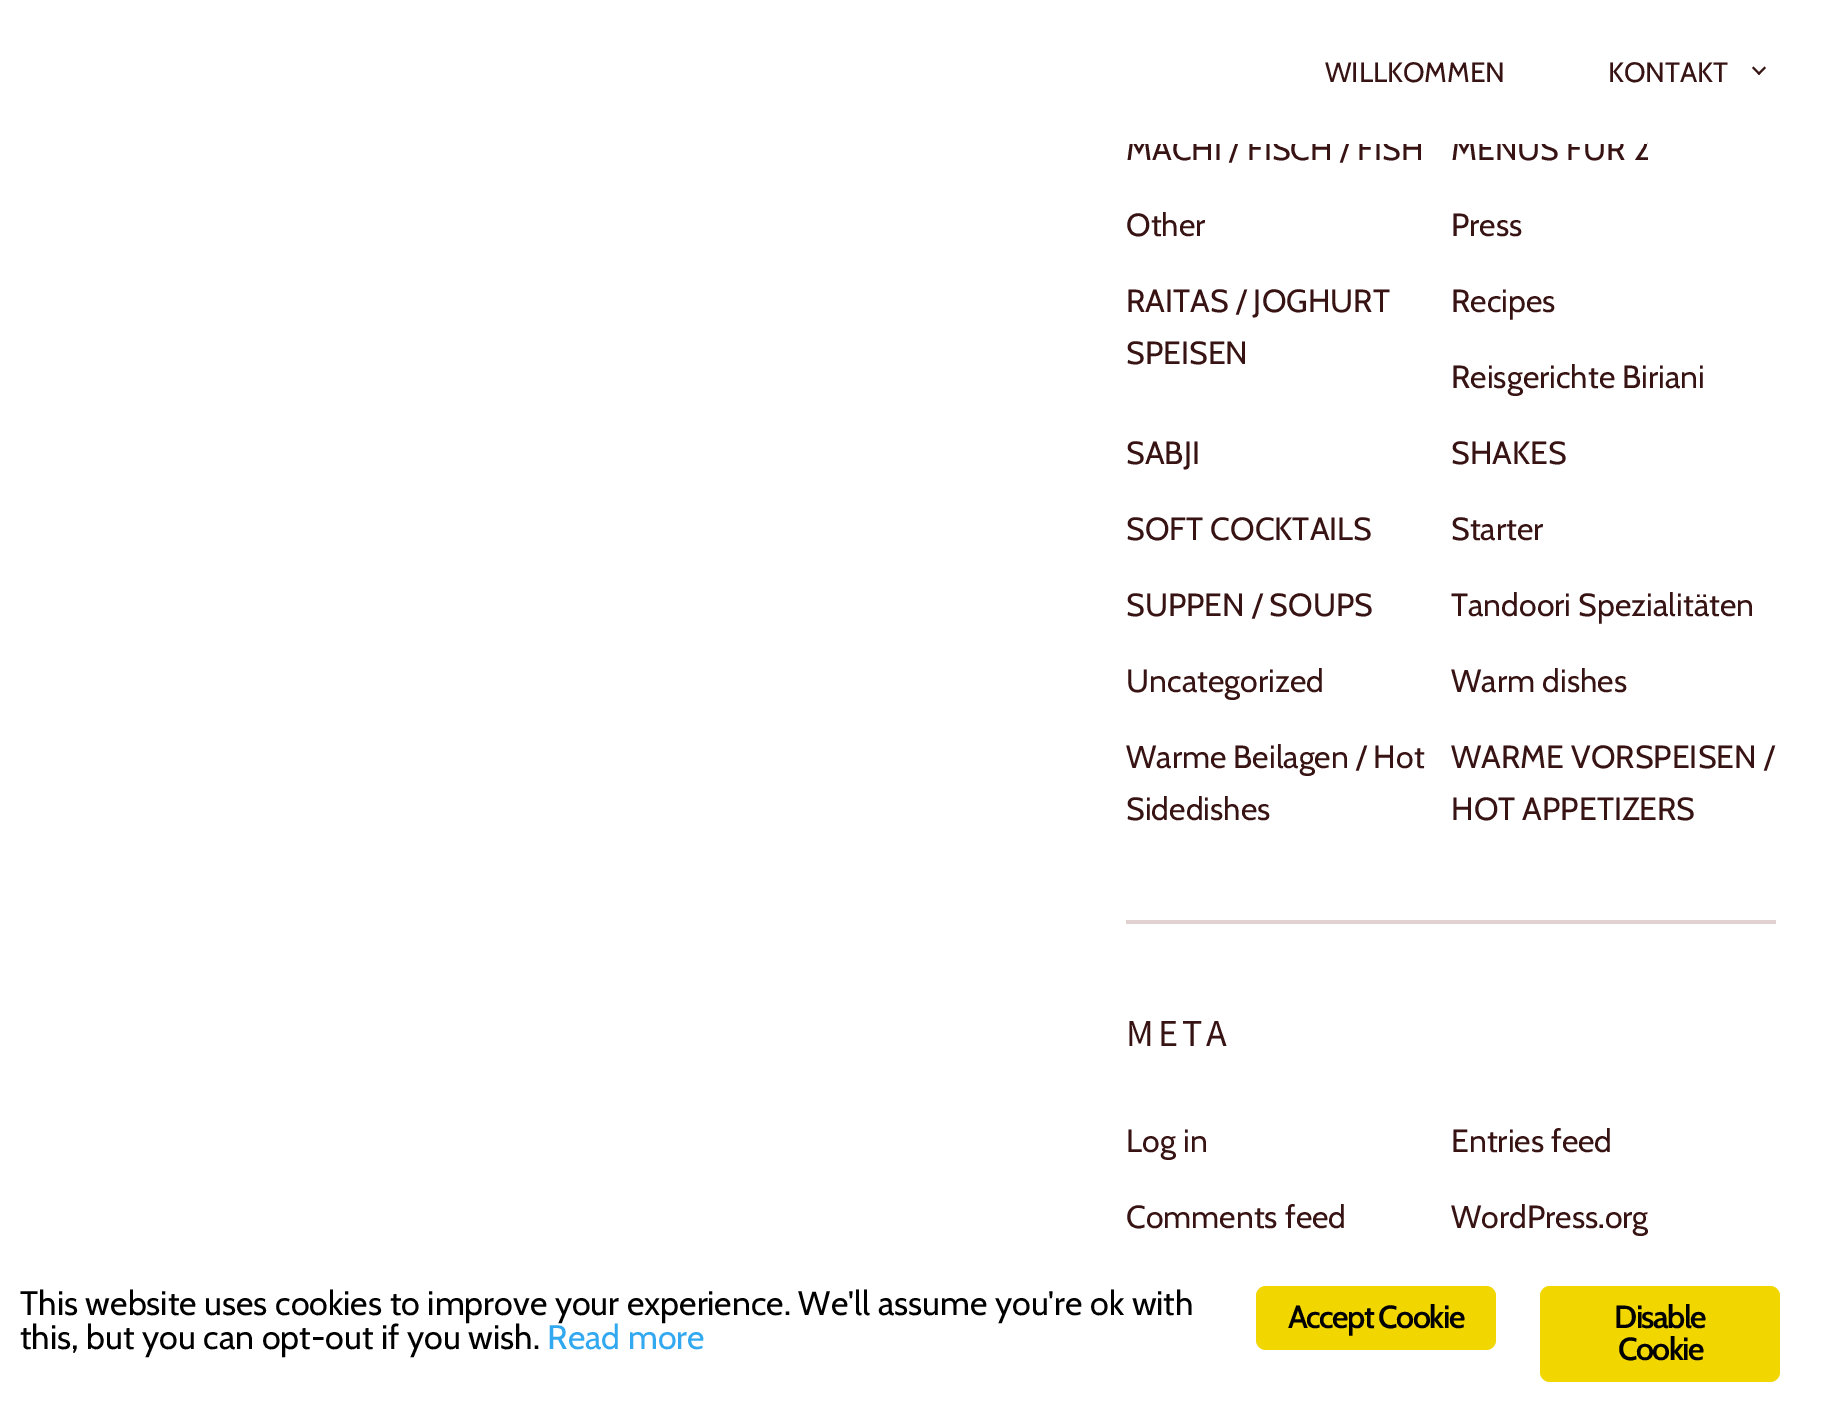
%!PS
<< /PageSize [1823 1414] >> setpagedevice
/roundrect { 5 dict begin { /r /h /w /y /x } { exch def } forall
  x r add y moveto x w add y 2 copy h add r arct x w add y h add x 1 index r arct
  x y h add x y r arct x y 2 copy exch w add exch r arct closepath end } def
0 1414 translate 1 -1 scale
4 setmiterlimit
1 setgray
0 0 1823 1414 rectfill
/Cabin-Regular [32 0 0 -32 0 0] selectfont
0.22 0.075 0.075 setrgbcolor
1126 160 moveto (MACHI / FISCH / FISH) show
1451 160 moveto (MENÜS FÜR 2) show
1 setgray
1129 132 518 12 rectfill
/Cabin-Regular [28 0 0 -28 0 0] selectfont
0.22 0.075 0.075 setrgbcolor
1325 82 moveto (WILLKOMMEN) show
1608 82 moveto (KONTAKT) show
newpath 1764.5 66.5 moveto 1766 68 lineto 1759 75 lineto 1757.5 73.5 lineto closepath fill
newpath 1753.5 66.5 moveto 1760.5 73.5 lineto 1759 75 lineto 1752 68 lineto closepath fill
0.886 0.82 0.82 setrgbcolor
1126 920 650 4 rectfill
/Cabin-Regular [32 0 0 -32 0 0] selectfont
0.22 0.075 0.075 setrgbcolor
1126 236 moveto (Other) show
1451 236 moveto (Press) show
1126 312 moveto (RAITAS / JOGHURT) show
1126 364 moveto (SPEISEN) show
1451 312 moveto (Recipes) show
1451 388 moveto (Reisgerichte Biriani) show
1126 464 moveto (SABJI) show
1451 464 moveto (SHAKES) show
1126 540 moveto (SOFT COCKTAILS) show
1451 540 moveto (Starter) show
1126 616 moveto (SUPPEN / SOUPS) show
1451 616 moveto (Tandoori Spezialitäten) show
1126 692 moveto (Uncategorized) show
1451 692 moveto (Warm dishes) show
1126 768 moveto (Warme Beilagen / Hot) show
1126 820 moveto (Sidedishes) show
1451 768 moveto (WARME VORSPEISEN /) show
1451 820 moveto (HOT APPETIZERS) show
/SourceSansPro-Regular [38 0 0 -38 0 0] selectfont
1126 1046 moveto 4 0 (META) ashow
/Cabin-Regular [32 0 0 -32 0 0] selectfont
1126 1152 moveto (Log in) show
1451 1152 moveto (Entries feed) show
1126 1228 moveto (Comments feed) show
1451 1228 moveto (WordPress.org) show
/Cabin-Regular [34 0 0 -34 0 0] selectfont
0 setgray
20 1315 moveto (This website uses cookies to improve your experience. We'll assume you're ok with) show
20 1349 moveto (this, but you can opt-out if you wish.) show
0.192 0.659 0.941 setrgbcolor
547 1349 moveto (Read more) show
0.945 0.839 0 setrgbcolor
1256 1286 240 64 10 roundrect fill
/Cabin-SemiBold [32 0 0 -32 0 0] selectfont
0 setgray
1288 1328 moveto -1.6 0 (Accept Cookie) ashow
0.945 0.839 0 setrgbcolor
1540 1286 240 96 10 roundrect fill
0 setgray
1614 1328 moveto -1.6 0 (Disable) ashow
1618 1360 moveto -1.6 0 (Cookie) ashow
showpage
